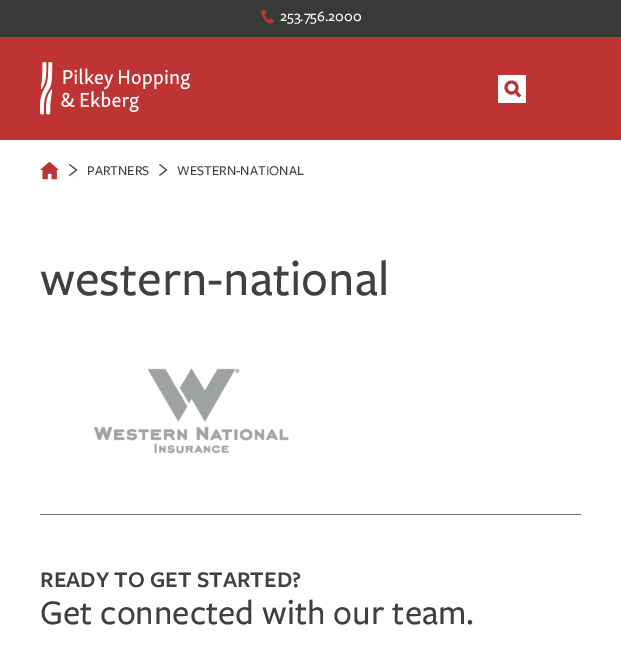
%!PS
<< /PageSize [621 651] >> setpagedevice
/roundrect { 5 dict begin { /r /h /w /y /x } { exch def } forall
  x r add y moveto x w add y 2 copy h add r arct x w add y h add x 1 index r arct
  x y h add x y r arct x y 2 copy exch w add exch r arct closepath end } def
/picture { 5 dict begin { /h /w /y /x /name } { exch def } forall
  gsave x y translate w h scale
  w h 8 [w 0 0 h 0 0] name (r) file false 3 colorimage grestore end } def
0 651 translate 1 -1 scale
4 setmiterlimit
1 setgray
0 0 621 651 rectfill
0.745 0.204 0.204 setrgbcolor
0 37 621 103 rectfill
0.216 0.227 0.212 setrgbcolor
0 0 621 37 rectfill
(img1.rgb) 261 9 13 15 picture
/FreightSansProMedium-Medium [15.25 0 0 -15.25 0 0] selectfont
1 setgray
280 21 moveto (253.756.2000) show
(img2.rgb) 40 62 150 53 picture
498 75 28 28 1 roundrect fill
0.745 0.204 0.204 setrgbcolor
3 setlinewidth
newpath 511.5 87.5 5.5 0 360 arc closepath stroke
newpath 516 92 moveto 520 96.5 lineto stroke
(img3.rgb) 40 161 19 19 picture
0.216 0.227 0.212 setrgbcolor
0.9 setlinewidth
newpath 69.5 164.5 moveto 76.5 170 lineto 69.5 175.5 lineto stroke
/FreightSansProMedium-Medium [14 0 0 -14 0 0] selectfont
0.251 setgray
87 175 moveto (PARTNERS) show
0.216 0.227 0.212 setrgbcolor
newpath 159.5 164.5 moveto 166.5 170 lineto 159.5 175.5 lineto stroke
0.251 setgray
177 175 moveto (WESTERN-NATIONAL) show
/FreightSansProMedium-Medium [51 0 0 -51 0 0] selectfont
40 295 moveto (western-national) show
(img4.rgb) 94 368 195 86 picture
0.439 setgray
40 514 541 1 rectfill
/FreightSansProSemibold-SemiBold [23.25 0 0 -23.25 0 0] selectfont
0.251 setgray
40 587 moveto (READY TO GET STARTED?) show
/FreightSansProMedium-Medium [35.75 0 0 -35.75 0 0] selectfont
40 624 moveto (Get connected with our team.) show
showpage
